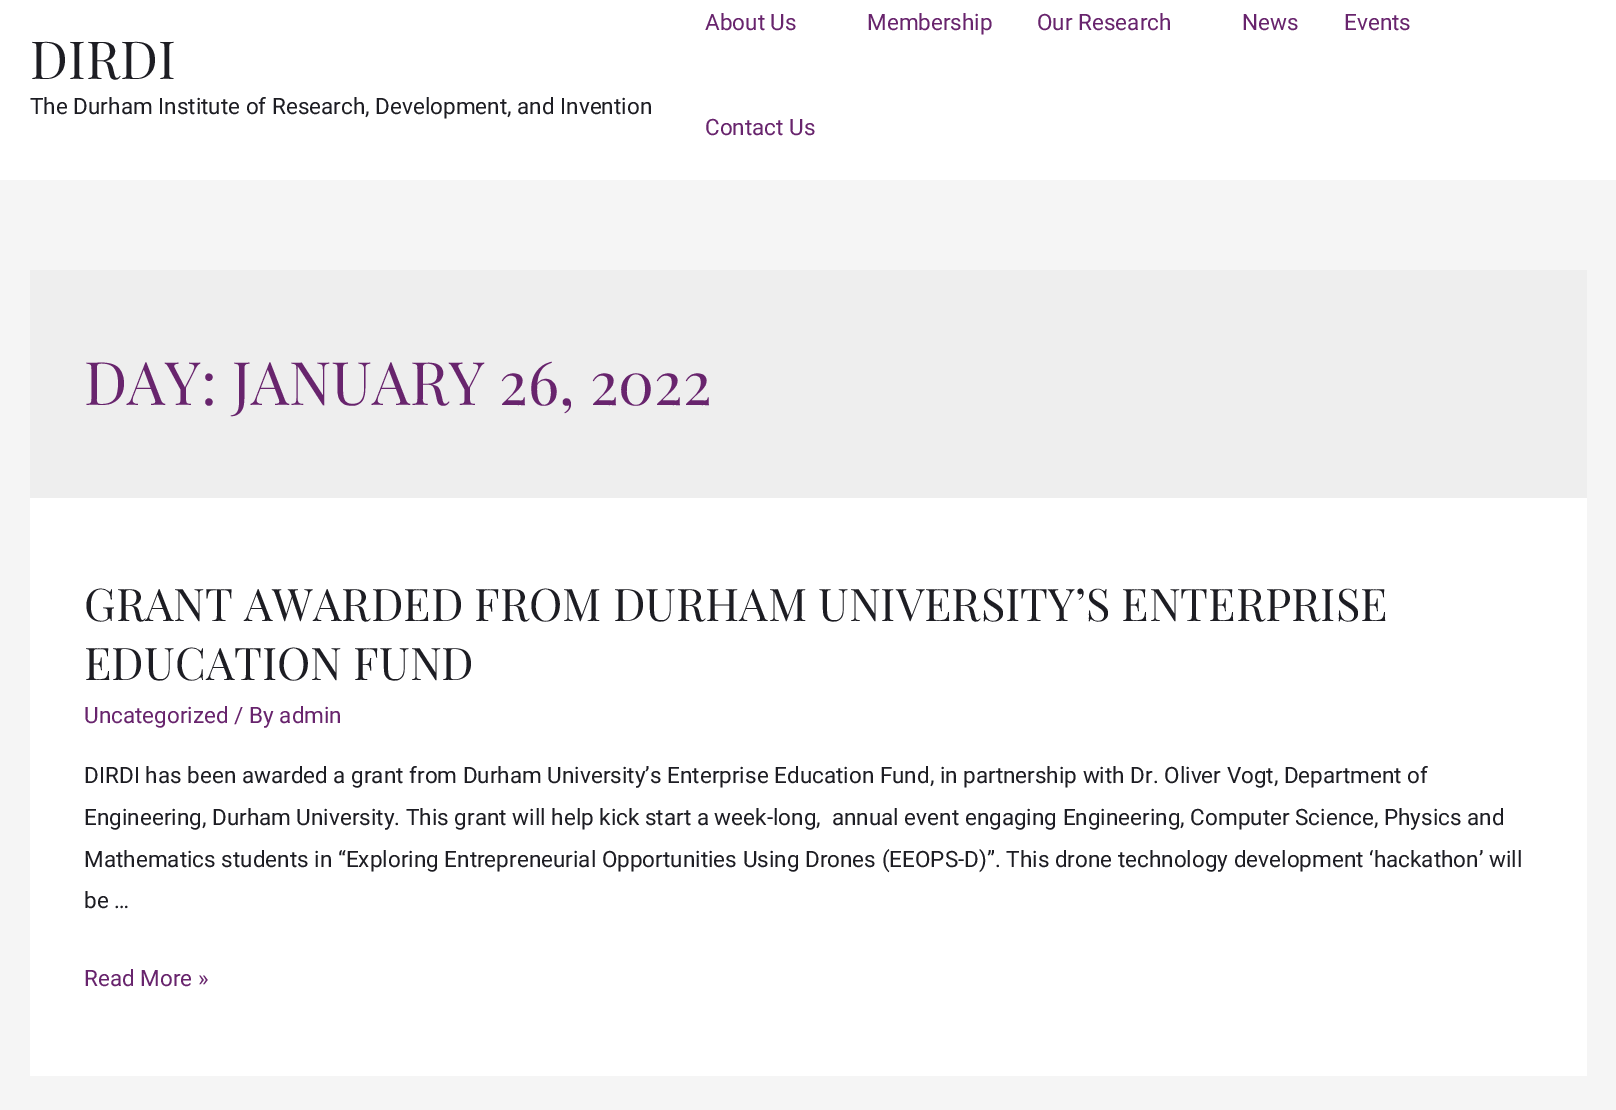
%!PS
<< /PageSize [1616 1110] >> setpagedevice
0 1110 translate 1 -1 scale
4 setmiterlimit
0.961 setgray
0 0 1616 1110 rectfill
1 setgray
0 0 1616 180 rectfill
/PlayfairDisplay-Regular [52.5 0 0 -52.5 0 0] selectfont
0.114 0.114 0.137 setrgbcolor
30 79 moveto (DIRDI) show
/Roboto-Regular [22.5 0 0 -22.5 0 0] selectfont
30 114 moveto (The Durham Institute of Research, Development, and Invention) show
0.408 0.141 0.427 setrgbcolor
705 30 moveto (About Us) show
867 30 moveto (Membership) show
1037 30 moveto (Our Research) show
1242 30 moveto (News) show
1344 30 moveto (Events) show
705 135 moveto (Contact Us) show
0.933 setgray
30 270 1557 228 rectfill
/PlayfairDisplay-Regular [60 0 0 -60 0 0] selectfont
0.408 0.141 0.427 setrgbcolor
84 405 moveto (DAY: JANUARY 26, 2022) show
1 setgray
30 498 1557 578 rectfill
/PlayfairDisplay-Regular [45 0 0 -45 0 0] selectfont
0.114 0.114 0.137 setrgbcolor
84 621 moveto (GRANT AWARDED FROM DURHAM UNIVERSITY’S ENTERPRISE) show
84 680 moveto (EDUCATION FUND) show
/Roboto-Regular [22.5 0 0 -22.5 0 0] selectfont
0.408 0.141 0.427 setrgbcolor
84 723 moveto (Uncategorized / By admin) show
0.114 0.114 0.137 setrgbcolor
84 783 moveto (DIRDI has been awarded a grant from Durham University’s Enterprise Education Fund, in partnership with Dr. Oliver Vogt, Department of) show
84 825 moveto (Engineering, Durham University. This grant will help kick start a week-long,  annual event engaging Engineering, Computer Science, Physics and) show
84 867 moveto (Mathematics students in “Exploring Entrepreneurial Opportunities Using Drones \(EEOPS-D\)”. This drone technology development ‘hackathon’ will) show
84 908 moveto (be …) show
0.408 0.141 0.427 setrgbcolor
84 986 moveto (Read More ») show
showpage
